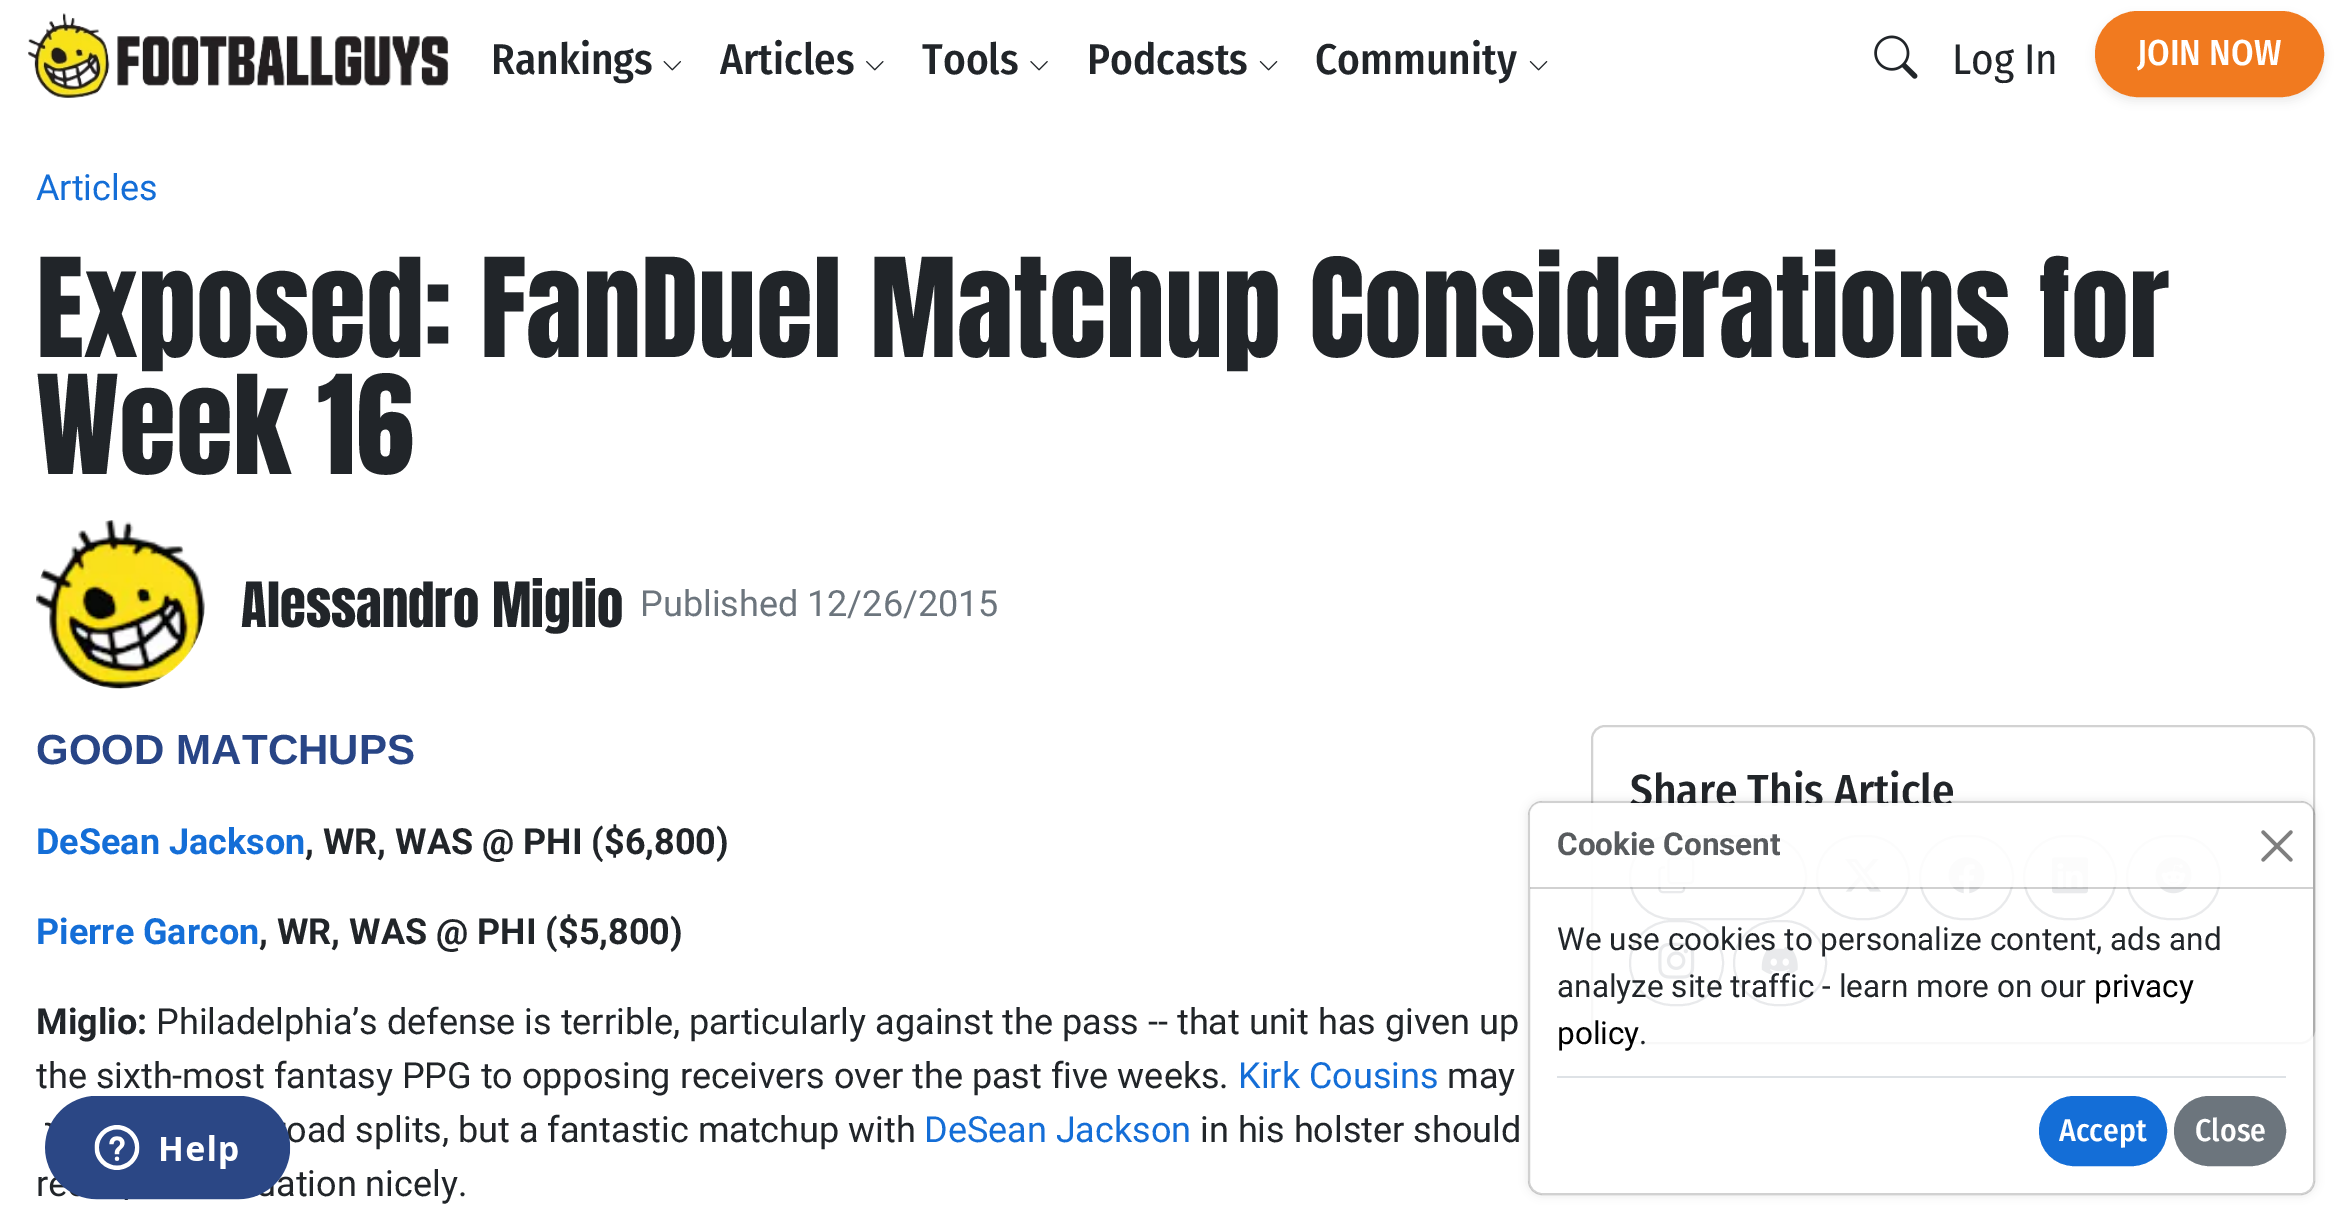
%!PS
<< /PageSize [2350 1229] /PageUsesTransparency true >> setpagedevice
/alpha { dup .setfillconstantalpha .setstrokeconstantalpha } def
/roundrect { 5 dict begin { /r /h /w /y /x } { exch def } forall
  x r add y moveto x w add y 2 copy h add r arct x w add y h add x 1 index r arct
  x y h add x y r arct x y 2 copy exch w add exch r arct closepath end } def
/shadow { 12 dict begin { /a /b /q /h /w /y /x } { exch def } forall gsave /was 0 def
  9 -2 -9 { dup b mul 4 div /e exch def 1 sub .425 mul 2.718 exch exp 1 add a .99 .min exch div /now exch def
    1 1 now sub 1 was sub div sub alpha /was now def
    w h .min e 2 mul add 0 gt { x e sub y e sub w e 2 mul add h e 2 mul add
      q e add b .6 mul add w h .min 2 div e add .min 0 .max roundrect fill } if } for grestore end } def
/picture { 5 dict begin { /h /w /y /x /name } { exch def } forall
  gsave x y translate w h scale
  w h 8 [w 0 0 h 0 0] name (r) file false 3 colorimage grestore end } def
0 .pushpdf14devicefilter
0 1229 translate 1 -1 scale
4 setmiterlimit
1 setgray
0 0 2350 1229 rectfill
(img1.rgb) 28 13 421 85 picture
/FiraSansCondensed-Medium [43 0 0 -43 0 0] selectfont
0.129 0.145 0.161 setrgbcolor
491 74 moveto (Rankings) show
(img2.rgb) 663 61 18 10 picture
720 74 moveto (Articles) show
(img3.rgb) 866 61 18 10 picture
922 74 moveto (Tools) show
(img4.rgb) 1030 61 18 10 picture
1087 74 moveto (Podcasts) show
(img5.rgb) 1259 61 19 10 picture
1315 74 moveto (Community) show
(img5.rgb) 1529 61 19 10 picture
(img6.rgb) 1874 35 44 44 picture
/FiraSansCondensed-Regular [43 0 0 -43 0 0] selectfont
1952 74 moveto (Log In) show
2095 16 229 85 42.5 4.5 0.1 shadow
0.945 0.478 0.122 setrgbcolor
2096 12 227 84 42 roundrect gsave fill grestore
2 setlinewidth
stroke
/FiraSansCondensed-Medium [36 0 0 -36 0 0] selectfont
1 setgray
2137 65 moveto (JOIN NOW) show
/Roboto-Regular [36 0 0 -36 0 0] selectfont
0.078 0.431 0.843 setrgbcolor
36 200 moveto (Articles) show
/Anton-Regular [116.6 0 0 -116.6 0 0] selectfont
0.129 0.145 0.161 setrgbcolor
36 357 moveto (Exposed: FanDuel Matchup Considerations for) show
36 474 moveto (Week 16) show
(img7.rgb) 36 520 169 169 picture
/Anton-Regular [53 0 0 -53 0 0] selectfont
241 627 moveto (Alessandro Miglio) show
/Roboto-Regular [36 0 0 -36 0 0] selectfont
0.424 0.459 0.49 setrgbcolor
640 616 moveto (Published 12/26/2015) show
/LiberationSans-Bold [42.1 0 0 -42.1 0 0] selectfont
0.157 0.271 0.525 setrgbcolor
36 764 moveto (GOOD MATCHUPS) show
/Roboto-Bold [36 0 0 -36 0 0] selectfont
0.078 0.431 0.843 setrgbcolor
36 854 moveto (DeSean Jackson) show
0.129 0.145 0.161 setrgbcolor
305 854 moveto (, WR, WAS @ PHI \($6,800\)) show
0.078 0.431 0.843 setrgbcolor
36 944 moveto (Pierre Garcon) show
0.129 0.145 0.161 setrgbcolor
259 944 moveto (, WR, WAS @ PHI \($5,800\)) show
36 1034 moveto (Miglio:) show
/Roboto-Regular [36 0 0 -36 0 0] selectfont
156 1034 moveto (Philadelphia’s defense is terrible, particularly against the pass -- that unit has given up) show
36 1088 moveto (the sixth-most fantasy PPG to opposing receivers over the past five weeks.) show
0.078 0.431 0.843 setrgbcolor
1238 1088 moveto (Kirk Cousins) show
0.129 0.145 0.161 setrgbcolor
1447 1088 moveto (may) show
286 1142 moveto (oad splits, but a fantastic matchup with) show
0.078 0.431 0.843 setrgbcolor
924 1142 moveto (DeSean Jackson) show
0.129 0.145 0.161 setrgbcolor
1200 1142 moveto (in his holster should) show
36 1196 moveto (r) show
276 1196 moveto (ation nicely.) show
0.824 setgray
1592 726 722 317 13 roundrect stroke
/FiraSansCondensed-Medium [45 0 0 -45 0 0] selectfont
0.129 0.145 0.161 setrgbcolor
1630 806 moveto (Share This Article) show
0.424 0.459 0.49 setrgbcolor
1630 836 176 83 41.5 roundrect stroke
(img8.rgb) 1658 857 37 37 picture
1817 836 92 83 41.5 roundrect stroke
(img9.rgb) 1845 858 36 34 picture
1920 836 93 83 41.5 roundrect stroke
(img10.rgb) 1948 857 37 37 picture
2024 836 92 83 41.5 roundrect stroke
(img11.rgb) 2052 857 36 37 picture
2127 836 93 83 41.5 roundrect stroke
(img12.rgb) 2155 857 37 37 picture
1630 921 93 84 42 roundrect stroke
(img13.rgb) 1658 942 37 37 picture
1734 921 92 84 42 roundrect stroke
(img14.rgb) 1761 947 37 28 picture
gsave
newpath 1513 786 moveto 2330 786 lineto 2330 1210 lineto 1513 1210 lineto closepath 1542 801 moveto 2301 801 lineto 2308.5 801 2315 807.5 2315 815 curveto 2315 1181 lineto 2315 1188.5 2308.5 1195 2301 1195 curveto 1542 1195 lineto 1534.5 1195 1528 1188.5 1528 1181 curveto 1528 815 lineto 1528 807.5 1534.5 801 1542 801 curveto closepath eoclip newpath
0 setgray
1528 801 787 394 14 4.5 0.1 shadow
grestore
0.85 alpha
1 setgray
1530 803 783 390 11 roundrect fill
0.18 alpha
0 setgray
1529 802 785 392 13 roundrect stroke
0.85 alpha
1 setgray
newpath 1541 803 moveto 2302 803 lineto 2308 803 2313 808 2313 814 curveto 2313 887 lineto 1530 887 lineto 1530 814 lineto 1530 808 1535 803 1541 803 curveto closepath fill
0.18 alpha
0 setgray
1530 887 783 2 rectfill
/Roboto-Bold [31.5 0 0 -31.5 0 0] selectfont
1 alpha
0.345 0.357 0.369 setrgbcolor
1557 855 moveto (Cookie Consent) show
(img15.rgb) 2261 830 32 32 picture
/Roboto-Regular [31.5 0 0 -31.5 0 0] selectfont
0.129 0.145 0.161 setrgbcolor
1557 950 moveto (We use cookies to personalize content, ads and) show
1557 997 moveto (analyze site traffic - learn more on our) show
0 setgray
2094 997 moveto (privacy) show
1557 1044 moveto (policy) show
0.129 0.145 0.161 setrgbcolor
1639 1044 moveto (.) show
0.871 0.886 0.902 setrgbcolor
1557 1076 729 2 rectfill
0.078 0.431 0.843 setrgbcolor
2040 1097 126 68 34 roundrect gsave fill grestore
stroke
/FiraSansCondensed-Medium [31.5 0 0 -31.5 0 0] selectfont
1 setgray
2059 1141 moveto (Accept) show
0.424 0.459 0.49 setrgbcolor
2175 1097 110 68 34 roundrect gsave fill grestore
stroke
1 setgray
2195 1141 moveto (Close) show
(img16.rgb) 45 1096 246 104 picture
.poppdf14devicefilter showpage
